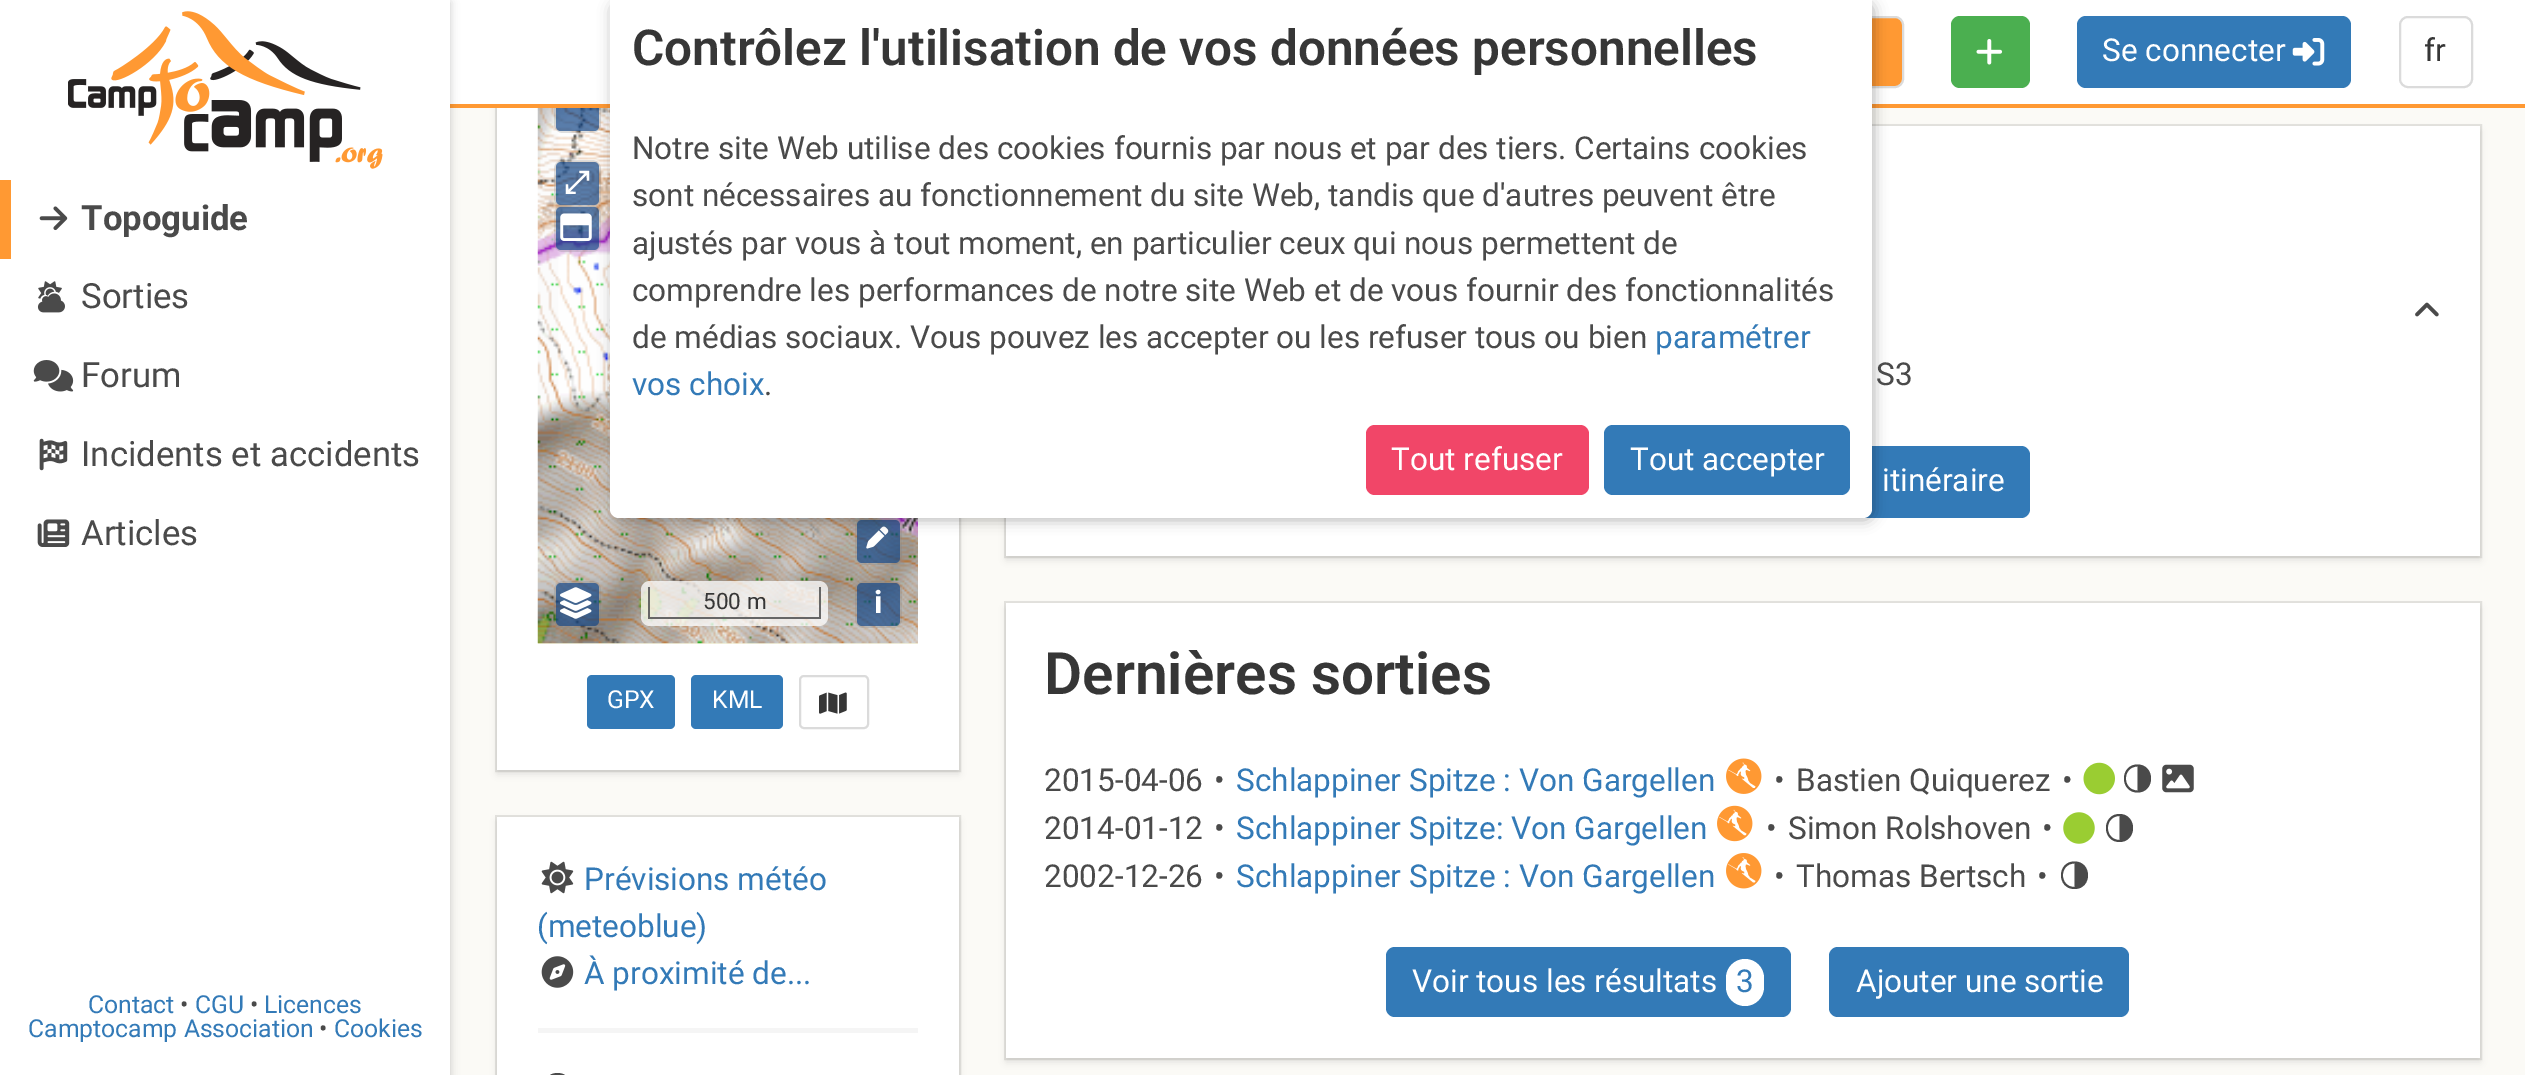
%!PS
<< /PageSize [2525 1075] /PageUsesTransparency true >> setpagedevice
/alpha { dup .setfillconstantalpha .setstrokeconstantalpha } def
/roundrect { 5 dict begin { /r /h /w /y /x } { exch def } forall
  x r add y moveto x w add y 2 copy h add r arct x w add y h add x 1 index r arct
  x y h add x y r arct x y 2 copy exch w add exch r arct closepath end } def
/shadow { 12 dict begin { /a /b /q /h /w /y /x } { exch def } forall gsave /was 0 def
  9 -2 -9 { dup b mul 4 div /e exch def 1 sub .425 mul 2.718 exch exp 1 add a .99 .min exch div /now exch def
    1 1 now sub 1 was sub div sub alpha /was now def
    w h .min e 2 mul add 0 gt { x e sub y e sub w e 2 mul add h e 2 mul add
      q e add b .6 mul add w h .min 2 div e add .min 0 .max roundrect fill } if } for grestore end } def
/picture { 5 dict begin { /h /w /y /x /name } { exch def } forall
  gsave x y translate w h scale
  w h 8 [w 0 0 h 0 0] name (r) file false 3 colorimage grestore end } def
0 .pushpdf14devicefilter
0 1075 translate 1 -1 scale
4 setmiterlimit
0.984 0.98 0.965 setrgbcolor
0 0 2525 1075 rectfill
0.89 0.886 0.871 setrgbcolor
2 setlinewidth
496 -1 464 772 rectstroke
0.039 setgray
497 -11 462 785 0 3.5 0.1 shadow
1 setgray
497 108 462 662 rectfill
0.961 0.961 0.863 setrgbcolor
538 643 380 1 rectfill
(img11.rgb) 537 108 381 536 picture
0.25 alpha
0.502 setgray
554 41 47 92 9 roundrect fill
0.6 alpha
0 0.235 0.533 setrgbcolor
newpath 556 88 moveto 599 88 lineto 599 126 lineto 599 129 597 131 594 131 curveto 561 131 lineto 558 131 556 129 556 126 curveto closepath fill
1 alpha
1 0.6 0.2 setrgbcolor
newpath 0 104 moveto 0 108 lineto 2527 108 lineto 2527 5 lineto 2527 104 lineto closepath fill
1 setgray
450 0 2075 104 rectfill
1 0.6 0.2 setrgbcolor
1695 17 208 70 8 roundrect gsave fill grestore
0.859 setgray
stroke
0.25 alpha
0.502 setgray
554 160 47 47 9 roundrect fill
0.6 alpha
0 0.235 0.533 setrgbcolor
556 162 43 43 5 roundrect fill
0.25 alpha
0.502 setgray
554 205 47 47 9 roundrect fill
0.6 alpha
0 0.235 0.533 setrgbcolor
556 207 43 43 5 roundrect fill
1 alpha
(img12.rgb) 560 213 32 28 picture
0.25 alpha
0.502 setgray
855 518 47 47 9 roundrect fill
0.6 alpha
0 0.235 0.533 setrgbcolor
857 520 43 43 5 roundrect fill
1 alpha
(img13.rgb) 866 526 23 23 picture
0.89 0.886 0.871 setrgbcolor
1005 125 1476 432 rectstroke
0.039 setgray
1006 131 1474 429 0 3.5 0.1 shadow
1 setgray
1006 126 1474 430 rectfill
0.2 0.478 0.718 setrgbcolor
1706 446 324 72 9 roundrect fill
0 setgray
612 2 1262 518 9 7 0.3 shadow
1 setgray
newpath 610 0 moveto 1872 0 lineto 1872 509 lineto 1872 514 1868 518 1863 518 curveto 619 518 lineto 614 518 610 514 610 509 curveto closepath fill
/Roboto-SemiBold [49.5 0 0 -49.5 0 0] selectfont
0.212 setgray
632 65 moveto (Contrôlez l'utilisation de vos données personnelles) show
/Roboto-Regular [31.5 0 0 -31.5 0 0] selectfont
0.29 setgray
632 159 moveto (Notre site Web utilise des cookies fournis par nous et par des tiers. Certains cookies) show
632 206 moveto (sont nécessaires au fonctionnement du site Web, tandis que d'autres peuvent être) show
632 254 moveto (ajustés par vous à tout moment, en particulier ceux qui nous permettent de) show
632 301 moveto (comprendre les performances de notre site Web et de vous fournir des fonctionnalités) show
632 348 moveto (de médias sociaux. Vous pouvez les accepter ou les refuser tous ou bien) show
0.2 0.478 0.718 setrgbcolor
1655 348 moveto (paramétrer) show
632 395 moveto (vos choix) show
0.29 setgray
764 395 moveto (.) show
0.945 0.275 0.408 setrgbcolor
1366 425 223 70 9 roundrect fill
1 setgray
1391 470 moveto (Tout refuser) show
0.2 0.478 0.718 setrgbcolor
1604 425 246 70 9 roundrect fill
1 setgray
1630 470 moveto (Tout accepter) show
0.294 0.686 0.314 setrgbcolor
1951 16 79 72 9 roundrect fill
(img1.rgb) 1976 39 27 26 picture
0.2 0.478 0.718 setrgbcolor
2077 16 274 72 9 roundrect fill
1 setgray
2102 61 moveto (Se connecter) show
(img2.rgb) 2292 38 33 28 picture
0.859 setgray
2400 17 72 70 8 roundrect stroke
0.212 setgray
2424 61 moveto (fr) show
0 setgray
0 2 450 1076 0 4.5 0.2 shadow
1 setgray
0 0 450 1075 rectfill
(img3.rgb) 68 11 315 158 picture
1 0.6 0.2 setrgbcolor
0 180 11 79 rectfill
(img4.rgb) 39 206 29 25 picture
/Roboto-Bold [34.75 0 0 -34.75 0 0] selectfont
0.29 setgray
81 230 moveto (Topoguide) show
(img5.rgb) 38 281 24 18 picture
(img6.rgb) 40 291 22 12 picture
(img7.rgb) 37 293 28 20 picture
/Roboto-Regular [34.75 0 0 -34.75 0 0] selectfont
81 308 moveto (Sorties) show
(img8.rgb) 33 360 41 32 picture
81 387 moveto (Forum) show
(img9.rgb) 39 438 29 33 picture
81 466 moveto (Incidents et accidents) show
(img10.rgb) 37 519 33 28 picture
81 545 moveto (Articles) show
/Roboto-Regular [24.75 0 0 -24.75 0 0] selectfont
0.2 0.478 0.718 setrgbcolor
88 1013 moveto (Contact) show
0.29 setgray
180 1013 moveto (•) show
0.2 0.478 0.718 setrgbcolor
195 1013 moveto (CGU) show
0.29 setgray
250 1013 moveto (•) show
0.2 0.478 0.718 setrgbcolor
264 1013 moveto (Licences) show
28 1037 moveto (Camptocamp Association) show
0.29 setgray
319 1037 moveto (•) show
0.2 0.478 0.718 setrgbcolor
334 1037 moveto (Cookies) show
/FreeSerif-Bold [31.5 0 0 -31.5 0 0] selectfont
1 setgray
564 193 moveto (⤢) show
0.25 alpha
0.502 setgray
554 581 47 47 9 roundrect fill
0.6 alpha
0 0.235 0.533 setrgbcolor
556 583 43 43 5 roundrect fill
1 alpha
(img14.rgb) 560 587 32 32 picture
0.75 alpha
1 setgray
641 581 187 45 9 roundrect fill
1 alpha
0.4 setgray
819 587 2 32 rectfill
648 617 173 2 rectfill
648 587 2 32 rectfill
/Roboto-Regular [22.5 0 0 -22.5 0 0] selectfont
0.212 setgray
703 609 moveto (500 m) show
0.25 alpha
0.502 setgray
855 581 47 47 9 roundrect fill
0.6 alpha
0 0.235 0.533 setrgbcolor
857 583 43 43 5 roundrect fill
/Roboto-Bold [31.5 0 0 -31.5 0 0] selectfont
1 alpha
1 setgray
874 613 moveto (i) show
0.2 0.478 0.718 setrgbcolor
587 675 88 54 5 roundrect fill
/Roboto-Regular [24.75 0 0 -24.75 0 0] selectfont
1 setgray
607 708 moveto (GPX) show
0.2 0.478 0.718 setrgbcolor
691 675 92 54 5 roundrect fill
1 setgray
712 708 moveto (KML) show
0.859 setgray
800 676 68 52 4 roundrect stroke
(img15.rgb) 819 692 28 22 picture
0.89 0.886 0.871 setrgbcolor
496 816 464 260 rectstroke
0.039 setgray
497 821 462 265 0 3.5 0.1 shadow
1 setgray
497 817 462 258 rectfill
(img16.rgb) 541 861 33 33 picture
/Roboto-Regular [31.5 0 0 -31.5 0 0] selectfont
0.2 0.478 0.718 setrgbcolor
584 890 moveto (Prévisions météo) show
537 937 moveto (\(meteoblue\)) show
(img17.rgb) 541 956 33 32 picture
584 984 moveto (À proximité de...) show
0.961 setgray
538 1028 380 5 rectfill
0.29 setgray
newpath 557.5 1073 moveto 539.5 1073 539.5 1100.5 557.5 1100.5 curveto 575.5 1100.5 575.5 1073 557.5 1073 curveto closepath 557.5 1075 moveto 557.5 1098.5 lineto 542 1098.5 542 1075 557.5 1075 curveto closepath fill
(img18.rgb) 2415 302 24 15 picture
1876 385 moveto (S3) show
1 setgray
1882 491 moveto (itinéraire) show
0.89 0.886 0.871 setrgbcolor
1005 602 1476 457 rectstroke
0.039 setgray
1006 608 1474 454 0 3.5 0.1 shadow
1 setgray
1006 603 1474 455 rectfill
/Roboto-SemiBold [58.5 0 0 -58.5 0 0] selectfont
0.212 setgray
1044 694 moveto (Dernières sorties) show
/Roboto-Regular [31.5 0 0 -31.5 0 0] selectfont
0.29 setgray
1044 791 moveto (2015-04-06) show
1214 791 moveto (•) show
0.2 0.478 0.718 setrgbcolor
1236 791 moveto (Schlappiner Spitze : Von Gargellen) show
(img19.rgb) 1726 758 36 36 picture
0.29 setgray
1774 791 moveto (•) show
1796 791 moveto (Bastien Quiquerez) show
2062 791 moveto (•) show
(img20.rgb) 2083 762 32 33 picture
newpath 2137.5 764.5 moveto 2119.5 764.5 2119.5 792.5 2137.5 792.5 curveto 2155.5 792.5 2155.5 764.5 2137.5 764.5 curveto closepath 2137.5 766.5 moveto 2137.5 790.5 lineto 2122 790.5 2122 766.5 2137.5 766.5 curveto closepath fill
(img21.rgb) 2162 764 32 29 picture
1044 839 moveto (2014-01-12) show
1214 839 moveto (•) show
0.2 0.478 0.718 setrgbcolor
1236 839 moveto (Schlappiner Spitze: Von Gargellen) show
(img22.rgb) 1717 805 36 37 picture
0.29 setgray
1766 839 moveto (•) show
1788 839 moveto (Simon Rolshoven) show
2042 839 moveto (•) show
(img23.rgb) 2063 812 32 32 picture
newpath 2119.5 814 moveto 2101.5 814 2101.5 842 2119.5 842 curveto 2137.5 842 2137.5 814 2119.5 814 curveto closepath 2119.5 816 moveto 2119.5 840 lineto 2104 840 2104 816 2119.5 816 curveto closepath fill
1044 887 moveto (2002-12-26) show
1214 887 moveto (•) show
0.2 0.478 0.718 setrgbcolor
1236 887 moveto (Schlappiner Spitze : Von Gargellen) show
(img24.rgb) 1726 853 36 36 picture
0.29 setgray
1774 887 moveto (•) show
1796 887 moveto (Thomas Bertsch) show
2037 887 moveto (•) show
newpath 2074.5 861.5 moveto 2056.5 861.5 2056.5 889 2074.5 889 curveto 2092.5 889 2092.5 861.5 2074.5 861.5 curveto closepath 2074.5 863.5 moveto 2074.5 887 lineto 2059 887 2059 863.5 2074.5 863.5 curveto closepath fill
0.2 0.478 0.718 setrgbcolor
1386 947 405 70 9 roundrect fill
1 setgray
1412 992 moveto (Voir tous les résultats) show
1726 959 38 47 19 roundrect fill
0.2 0.478 0.718 setrgbcolor
1736 992 moveto (3) show
1829 947 300 70 9 roundrect fill
1 setgray
1856 992 moveto (Ajouter une sortie) show
.poppdf14devicefilter showpage
